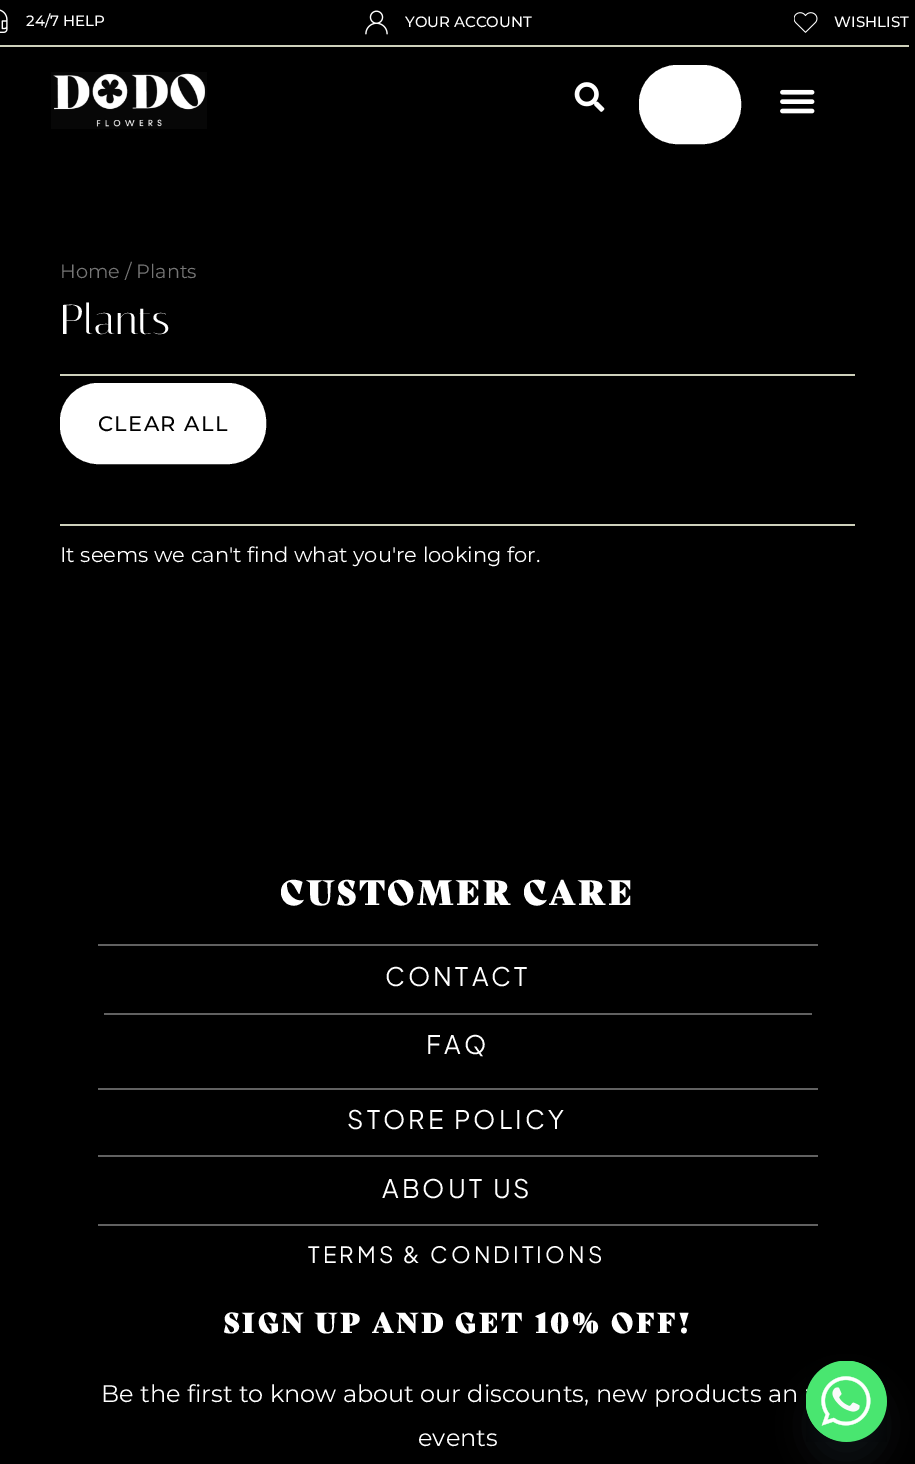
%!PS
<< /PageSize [915 1464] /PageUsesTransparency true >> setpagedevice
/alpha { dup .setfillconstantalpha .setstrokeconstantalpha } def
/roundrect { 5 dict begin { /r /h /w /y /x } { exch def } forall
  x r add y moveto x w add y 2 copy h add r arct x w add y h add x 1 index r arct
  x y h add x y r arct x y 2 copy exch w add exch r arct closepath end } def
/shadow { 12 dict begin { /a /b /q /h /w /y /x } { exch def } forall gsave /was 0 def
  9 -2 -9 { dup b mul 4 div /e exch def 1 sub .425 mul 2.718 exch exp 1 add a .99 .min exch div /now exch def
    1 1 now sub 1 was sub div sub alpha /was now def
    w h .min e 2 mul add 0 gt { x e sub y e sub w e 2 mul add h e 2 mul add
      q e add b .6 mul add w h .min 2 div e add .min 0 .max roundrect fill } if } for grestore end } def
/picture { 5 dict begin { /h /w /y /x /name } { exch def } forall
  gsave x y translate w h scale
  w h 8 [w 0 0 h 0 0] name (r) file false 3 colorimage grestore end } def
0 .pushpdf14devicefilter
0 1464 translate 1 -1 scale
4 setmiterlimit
0 setgray
0 0 915 1464 rectfill
0.808 0.816 0.733 setrgbcolor
0 45 909 2 rectfill
(img1.rgb) 0 9 8 24 picture
/Montserrat-Medium [15 0 0 -15 0 0] selectfont
1 setgray
26 26 moveto (24/7 HELP) show
(img2.rgb) 365 10 23 25 picture
405 27 moveto (YOUR ACCOUNT) show
(img3.rgb) 794 12 24 21 picture
834 27 moveto (WISHLIST) show
(img4.rgb) 51 72 156 57 picture
(img5.rgb) 574 82 31 30 picture
640 66 100 77 37 roundrect gsave fill grestore
2 setlinewidth
stroke
(img6.rgb) 780 89 35 25 picture
/Montserrat-Regular [19.25 0 0 -19.25 0 0] selectfont
0.463 setgray
60 278 moveto (Home / Plants) show
/Italiana-Regular [42 0 0 -42 0 0] selectfont
1 setgray
60 334 moveto (Plants) show
0.808 0.816 0.733 setrgbcolor
60 374 795 2 rectfill
1 setgray
61 384 204 79 37 roundrect gsave fill grestore
stroke
/Montserrat-Medium [21 0 0 -21 0 0] selectfont
0 setgray
98 431 moveto 1.4 0 (CLEAR ALL) ashow
0.808 0.816 0.733 setrgbcolor
60 524 795 2 rectfill
/Montserrat-Regular [21 0 0 -21 0 0] selectfont
1 setgray
60 562 moveto (It seems we can't find what you're looking for.) show
/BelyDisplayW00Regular-Bold [33 0 0 -33 0 0] selectfont
280 905 moveto 3.3 0 (CUSTOMER CARE) ashow
0.38 setgray
98 944 720 2 rectfill
/PlusJakartaSans-Regular [25.5 0 0 -25.5 0 0] selectfont
1 setgray
385 986 moveto 3.1 0 (CONTACT) ashow
0.38 setgray
104 1013 708 2 rectfill
1 setgray
426 1054 moveto 3.1 0 (FAQ) ashow
0.38 setgray
98 1088 720 2 rectfill
1 setgray
347 1129 moveto 3.1 0 (STORE POLICY) ashow
0.38 setgray
98 1155 720 2 rectfill
1 setgray
382 1198 moveto 3.1 0 (ABOUT US) ashow
0.38 setgray
98 1224 720 2 rectfill
/PlusJakartaSans-Regular [22.5 0 0 -22.5 0 0] selectfont
1 setgray
308 1263 moveto 3.1 0 (TERMS & CONDITIONS) ashow
/BelyDisplayW00Regular-Bold [27 0 0 -27 0 0] selectfont
223 1333 moveto 3.3 0 (SIGN UP AND GET 10% OFF!) ashow
/Montserrat-Regular [24 0 0 -24 0 0] selectfont
101 1402 moveto (Be the first to know about our discounts, new products an) show
418 1446 moveto (events) show
0.286 0.408 0.494 setrgbcolor
806 1385 81 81 40.5 18 0.16 shadow
0.286 0.902 0.439 setrgbcolor
newpath 846.5 1401.5 40.5 0 360 arc closepath fill
(img7.rgb) 806 1361 81 81 picture
.poppdf14devicefilter showpage
